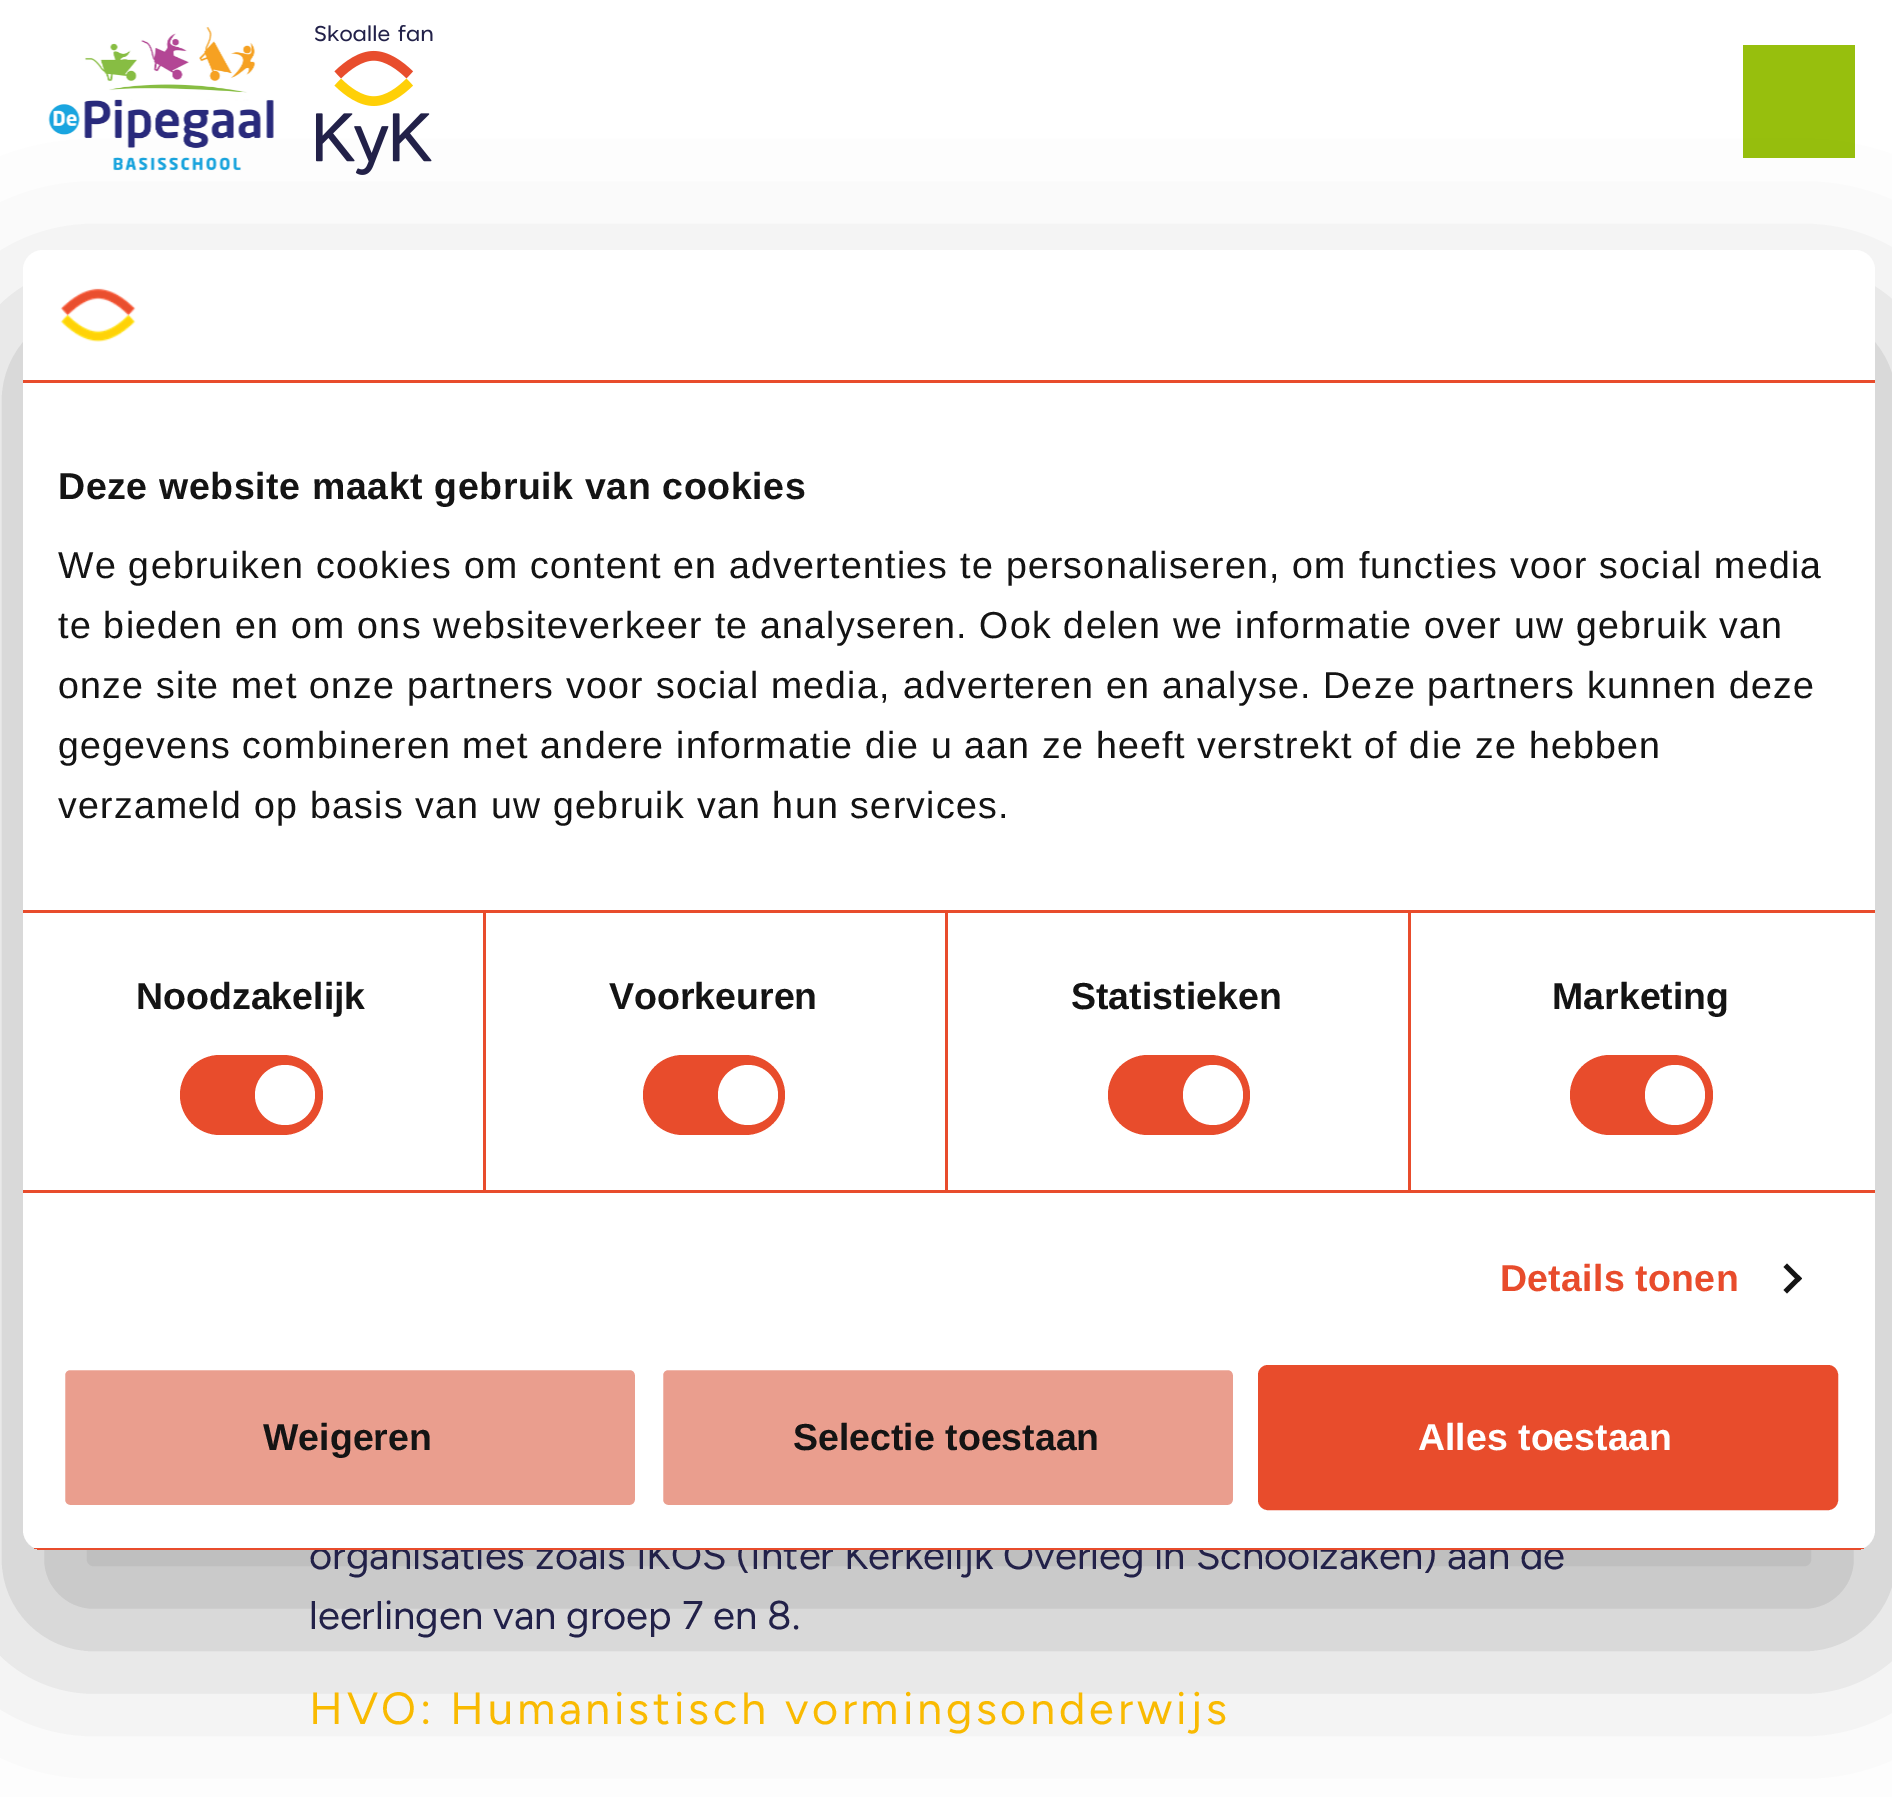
%!PS
<< /PageSize [1892 1797] /PageUsesTransparency true >> setpagedevice
/alpha { dup .setfillconstantalpha .setstrokeconstantalpha } def
/roundrect { 5 dict begin { /r /h /w /y /x } { exch def } forall
  x r add y moveto x w add y 2 copy h add r arct x w add y h add x 1 index r arct
  x y h add x y r arct x y 2 copy exch w add exch r arct closepath end } def
/shadow { 12 dict begin { /a /b /q /h /w /y /x } { exch def } forall gsave /was 0 def
  9 -2 -9 { dup b mul 4 div /e exch def 1 sub .425 mul 2.718 exch exp 1 add a .99 .min exch div /now exch def
    1 1 now sub 1 was sub div sub alpha /was now def
    w h .min e 2 mul add 0 gt { x e sub y e sub w e 2 mul add h e 2 mul add
      q e add b .6 mul add w h .min 2 div e add .min 0 .max roundrect fill } if } for grestore end } def
/picture { 5 dict begin { /h /w /y /x /name } { exch def } forall
  gsave x y translate w h scale
  w h 8 [w 0 0 h 0 0] name (r) file false 3 colorimage grestore end } def
0 .pushpdf14devicefilter
0 1797 translate 1 -1 scale
4 setmiterlimit
1 setgray
0 0 1892 1797 rectfill
(img2.rgb) 48 27 226 144 picture
(img3.rgb) 315 25 118 150 picture
0.592 0.749 0.051 setrgbcolor
1743 45 112 113 rectfill
gsave
newpath 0 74 moveto 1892 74 lineto 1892 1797 lineto 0 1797 lineto closepath 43 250 moveto 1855 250 lineto 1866 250 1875 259 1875 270 curveto 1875 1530 lineto 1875 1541 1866 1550 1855 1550 curveto 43 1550 lineto 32 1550 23 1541 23 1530 curveto 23 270 lineto 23 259 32 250 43 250 curveto closepath eoclip newpath
0 setgray
23 330 1852 1300 20 85 0.3 shadow
grestore
/Figtree-Regular [40 0 0 -40 0 0] selectfont
0.133 0.129 0.286 setrgbcolor
309 1569 moveto (organisaties zoals IKOS \(Inter Kerkelijk Overleg in Schoolzaken\) aan de) show
1 setgray
23 250 1852 1300 20 roundrect fill
0.91 0.298 0.173 setrgbcolor
23 380 1852 3 rectfill
(img1.rgb) 60 288 76 54 picture
23 910 1852 3 rectfill
/LiberationSans-Bold [37.5 0 0 -37.5 0 0] selectfont
0.078 setgray
58 499 moveto 0.6 0 (Deze website maakt gebruik van cookies) ashow
/LiberationSans-Regular [37.5 0 0 -37.5 0 0] selectfont
58 578 moveto 1.25 0 (We gebruiken cookies om content en advertenties te personaliseren, om functies voor social media) ashow
58 638 moveto 1.25 0 (te bieden en om ons websiteverkeer te analyseren. Ook delen we informatie over uw gebruik van) ashow
58 698 moveto 1.25 0 (onze site met onze partners voor social media, adverteren en analyse. Deze partners kunnen deze) ashow
58 758 moveto 1.25 0 (gegevens combineren met andere informatie die u aan ze heeft verstrekt of die ze hebben) ashow
58 818 moveto 1.25 0 (verzameld op basis van uw gebruik van hun services.) ashow
0.91 0.298 0.173 setrgbcolor
23 1190 1852 3 rectfill
483 913 3 277 rectfill
/LiberationSans-Bold [37.5 0 0 -37.5 0 0] selectfont
0.078 setgray
136 1009 moveto (Noodzakelijk) show
0.91 0.298 0.173 setrgbcolor
180 1055 143 80 40 roundrect fill
1 setgray
newpath 285 1095 30 0 360 arc closepath fill
0.91 0.298 0.173 setrgbcolor
945 913 3 277 rectfill
0.078 setgray
609 1009 moveto (Voorkeuren) show
0.91 0.298 0.173 setrgbcolor
643 1055 142 80 40 roundrect fill
1 setgray
newpath 748 1095 30 0 360 arc closepath fill
0.91 0.298 0.173 setrgbcolor
1408 913 3 277 rectfill
0.078 setgray
1071 1009 moveto (Statistieken) show
0.91 0.298 0.173 setrgbcolor
1108 1055 142 80 40 roundrect fill
1 setgray
newpath 1213 1095 30 0 360 arc closepath fill
0.078 setgray
1552 1009 moveto (Marketing) show
0.91 0.298 0.173 setrgbcolor
1570 1055 143 80 40 roundrect fill
1 setgray
newpath 1675 1095 30 0 360 arc closepath fill
0.91 0.298 0.173 setrgbcolor
1500 1291 moveto 0.25 0 (Details tonen) ashow
0.078 setgray
newpath 1787 1263.5 moveto 1802 1278.5 lineto 1798.5 1282 lineto 1783.5 1267 lineto closepath fill
newpath 1798.5 1275 moveto 1802 1278.5 lineto 1787 1293.5 lineto 1783.5 1290 lineto closepath fill
gsave
23 250 1852 1300 20 roundrect clip newpath
0.91 0.298 0.173 setrgbcolor
34 1548 1830 2 rectfill
grestore
0.918 0.62 0.557 setrgbcolor
62.5 1367.5 575 140 7.5 roundrect gsave fill grestore
1 setgray
5 setlinewidth
stroke
0.078 setgray
263 1450 moveto (Weigeren) show
0.918 0.62 0.557 setrgbcolor
660.5 1367.5 575 140 7.5 roundrect gsave fill grestore
1 setgray
stroke
0.078 setgray
793 1450 moveto (Selectie toestaan) show
0.91 0.298 0.173 setrgbcolor
1260.5 1367.5 575 140 7.5 roundrect gsave fill grestore
stroke
1 setgray
1418 1450 moveto (Alles toestaan) show
/Figtree-Regular [40 0 0 -40 0 0] selectfont
0.133 0.129 0.286 setrgbcolor
309 1629 moveto (leerlingen van groep 7 en 8.) show
/Figtree-Regular [45 0 0 -45 0 0] selectfont
0.976 0.729 0.004 setrgbcolor
309 1724 moveto 3.75 0 (HVO: Humanistisch vormingsonderwijs) ashow
.poppdf14devicefilter showpage
